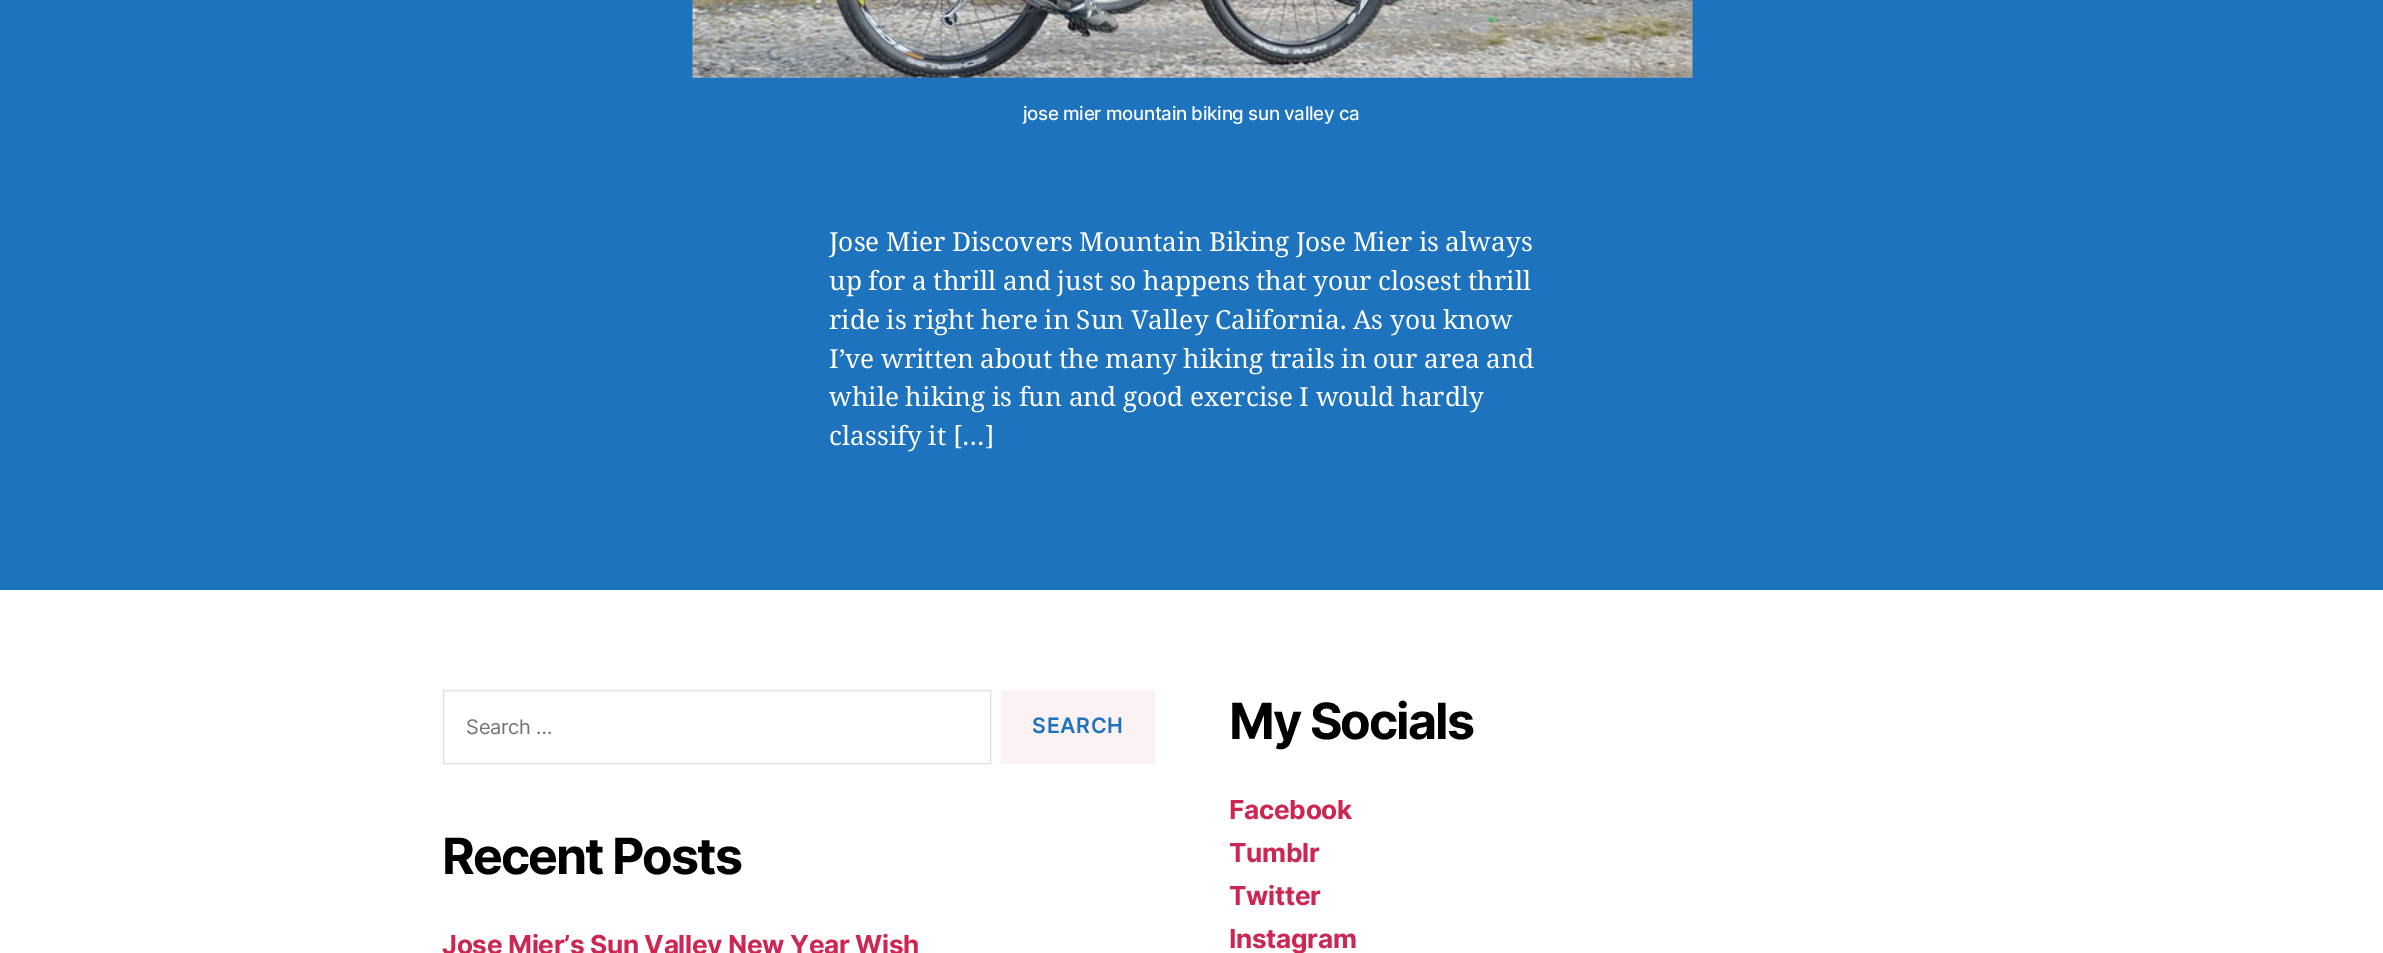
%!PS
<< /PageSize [2383 953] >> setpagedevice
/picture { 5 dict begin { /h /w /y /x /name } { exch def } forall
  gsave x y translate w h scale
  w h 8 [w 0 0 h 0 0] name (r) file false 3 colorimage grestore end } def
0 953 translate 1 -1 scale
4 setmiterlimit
0.118 0.451 0.745 setrgbcolor
0 0 2383 953 rectfill
(img1.rgb) 692 0 1001 78 picture
/Inter-Medium [18.75 0 0 -18.75 0 0] selectfont
1 setgray
1023 120 moveto -0.35 0 (jose mier mountain biking sun valley ca) ashow
/NotoSerif-Regular [26.25 0 0 -26.25 0 0] selectfont
829 251 moveto -0.25 0 32 (Jose Mier Discovers Mountain Biking Jose Mier is always) widthshow
829 290 moveto -0.25 0 32 (up for a thrill and just so happens that your closest thrill) widthshow
829 329 moveto -0.25 0 32 (ride is right here in Sun Valley California. As you know) widthshow
829 368 moveto -0.25 0 32 (I’ve written about the many hiking trails in our area and) widthshow
829 406 moveto -0.25 0 32 (while hiking is fun and good exercise I would hardly) widthshow
829 445 moveto (classify it […]) show
0 590 2383 363 rectfill
0.871 0.875 0.875 setrgbcolor
443.5 690.5 547 73 rectstroke
/Inter-Regular [20 0 0 -20 0 0] selectfont
0.459 setgray
466 734 moveto -0.25 0 (Search …) ashow
0.988 0.949 0.957 setrgbcolor
1001 690 154 74 rectfill
/Inter-SemiBold [21.25 0 0 -21.25 0 0] selectfont
0.118 0.451 0.745 setrgbcolor
1032 733 moveto 0.75 0 (SEARCH) ashow
/Inter-Bold [50 0 0 -50 0 0] selectfont
0 setgray
442 874 moveto -2 0 (Recent Posts) ashow
/Inter-Bold [26.25 0 0 -26.25 0 0] selectfont
0.804 0.149 0.325 setrgbcolor
442 954 moveto -0.35 0 (Jose Mier’s Sun Valley New Year Wish) ashow
/Inter-Bold [50 0 0 -50 0 0] selectfont
0 setgray
1229 739 moveto -2 0 (My Socials) ashow
/Inter-Bold [26.25 0 0 -26.25 0 0] selectfont
0.804 0.149 0.325 setrgbcolor
1229 819 moveto -0.35 0 (Facebook) ashow
1229 862 moveto -0.35 0 (Tumblr) ashow
1229 905 moveto -0.35 0 (Twitter) ashow
1229 948 moveto -0.35 0 (Instagram) ashow
showpage
